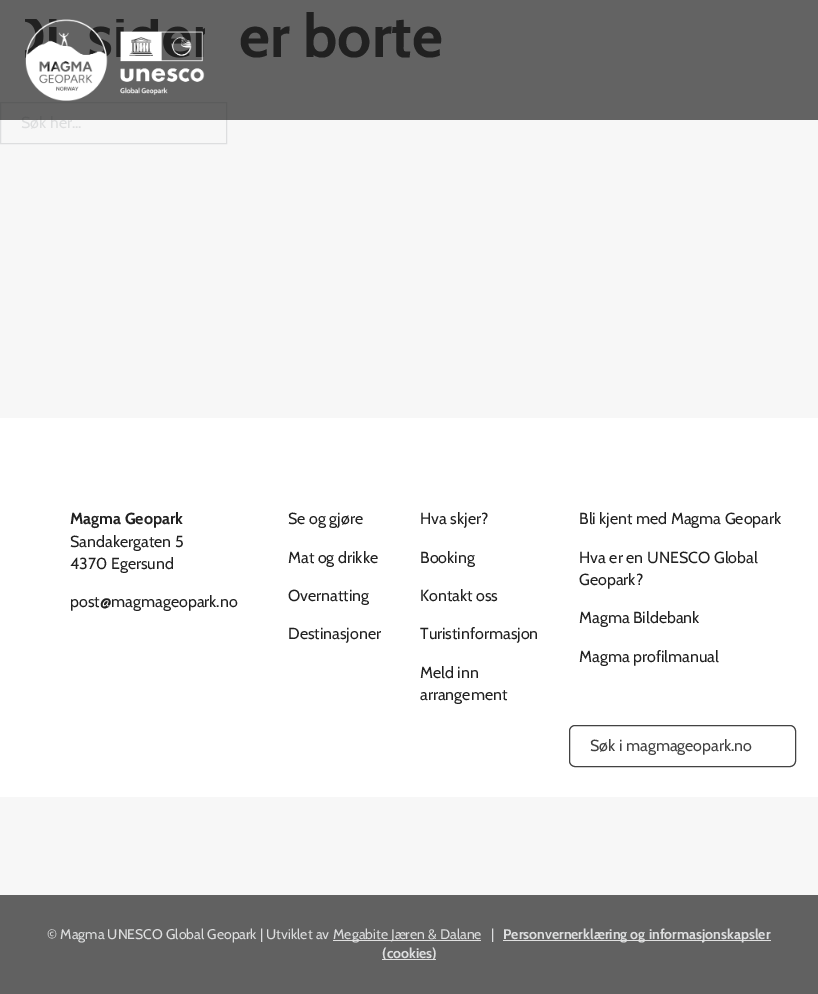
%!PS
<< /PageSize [818 994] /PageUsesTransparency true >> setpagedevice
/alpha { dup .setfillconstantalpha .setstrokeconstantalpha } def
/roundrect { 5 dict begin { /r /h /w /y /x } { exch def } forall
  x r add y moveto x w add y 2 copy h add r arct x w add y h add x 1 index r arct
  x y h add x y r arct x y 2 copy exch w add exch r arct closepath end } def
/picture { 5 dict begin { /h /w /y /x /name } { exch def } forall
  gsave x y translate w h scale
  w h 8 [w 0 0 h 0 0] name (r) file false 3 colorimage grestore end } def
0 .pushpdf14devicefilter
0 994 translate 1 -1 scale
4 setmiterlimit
0.969 setgray
0 0 818 994 rectfill
/Cabin-Bold [60 0 0 -60 0 0] selectfont
0.129 setgray
239 57 moveto (er borte) show
0.867 0.871 0.875 setrgbcolor
0.5 102.5 226 41 rectstroke
/Cabin-Regular [16 0 0 -16 0 0] selectfont
21 128 moveto (Søk her...) show
0.69 alpha
0.129 setgray
0 0 818 120 rectfill
1 alpha
(img1.rgb) 25 19 180 82 picture
1 setgray
0 418 818 379 rectfill
/Cabin-Bold [16 0 0 -16 0 0] selectfont
0.129 setgray
70 524 moveto (Magma Geopark) show
/Cabin-Regular [16 0 0 -16 0 0] selectfont
70 547 moveto (Sandakergaten 5) show
70 569 moveto (4370 Egersund) show
70 607 moveto (post@magmageopark.no) show
288 524 moveto (Se og gjøre) show
288 563 moveto (Mat og drikke) show
288 601 moveto (Overnatting) show
288 639 moveto (Destinasjoner) show
420 524 moveto (Hva skjer?) show
420 563 moveto (Booking) show
420 601 moveto (Kontakt oss) show
420 639 moveto (Turistinformasjon) show
420 678 moveto (Meld inn) show
420 700 moveto (arrangement) show
579 524 moveto (Bli kjent med Magma Geopark) show
579 563 moveto (Hva er en UNESCO Global) show
579 585 moveto (Geopark?) show
579 623 moveto (Magma Bildebank) show
579 662 moveto (Magma profilmanual) show
0.259 setgray
569.5 725.5 226 41 5.5 roundrect stroke
590 751 moveto (Søk i magmageopark.no) show
0.38 setgray
0 895 818 99 rectfill
/Cabin-Regular [14 0 0 -14 0 0] selectfont
0.867 0.871 0.875 setrgbcolor
47 939 moveto (© Magma UNESCO Global Geopark | Utviklet av) show
0.878 setgray
333 940 148 1 rectfill
0.867 0.871 0.875 setrgbcolor
333 939 moveto (Megabite Jæren & Dalane) show
491 939 moveto (|) show
0.878 setgray
503 940 268 1 rectfill
/Cabin-Bold [14 0 0 -14 0 0] selectfont
0.867 0.871 0.875 setrgbcolor
503 939 moveto (Personvernerklæring og informasjonskapsler) show
0.878 setgray
382 959 54 1 rectfill
0.867 0.871 0.875 setrgbcolor
382 958 moveto (\(cookies\)) show
.poppdf14devicefilter showpage
